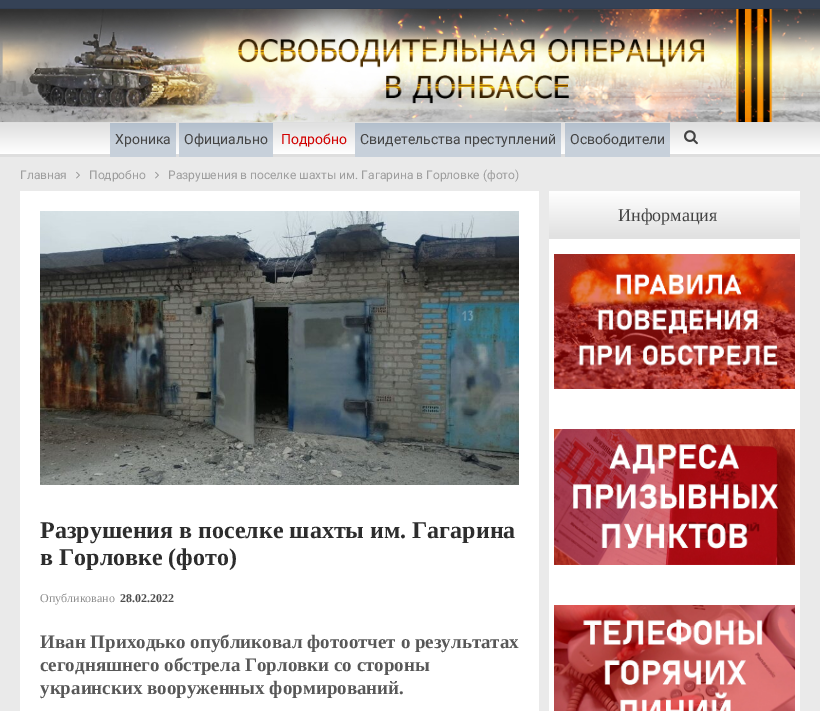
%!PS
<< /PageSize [820 711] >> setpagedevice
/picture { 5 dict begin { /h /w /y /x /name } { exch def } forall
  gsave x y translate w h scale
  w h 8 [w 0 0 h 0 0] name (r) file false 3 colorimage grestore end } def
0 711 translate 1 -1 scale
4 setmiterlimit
0.918 setgray
0 0 820 711 rectfill
0.208 0.259 0.337 setrgbcolor
0 0 820 8 rectfill
0.192 0.239 0.314 setrgbcolor
0 8 820 1 rectfill
(img1.rgb) 0 9 820 113 picture
gsave newpath 0 123 moveto 820 123 lineto 820 154 lineto 0 154 lineto closepath clip newpath
<< /ShadingType 2 /ColorSpace /DeviceRGB /Coords [410 123 410 154] /Extend [true true] /Function << /FunctionType 3 /Domain [0 1] /Functions [<< /FunctionType 2 /Domain [0 1] /C0 [0.882 0.882 0.882] /C1 [0.882 0.882 0.882] /N 1 >> << /FunctionType 2 /Domain [0 1] /C0 [0.882 0.882 0.882] /C1 [1 1 1] /N 1 >>] /Bounds [0.06] /Encode [0 1 0 1] >> >> shfill grestore
0.871 setgray
0 122 820 1 rectfill
0 154 820 3 rectfill
gsave newpath 110 123 moveto 176 123 lineto 176 157 lineto 110 157 lineto closepath clip newpath
<< /ShadingType 2 /ColorSpace /DeviceRGB /Coords [143 123 143 157] /Extend [true true] /Function << /FunctionType 3 /Domain [0 1] /Functions [<< /FunctionType 2 /Domain [0 1] /C0 [0.702 0.749 0.8] /C1 [0.78 0.816 0.855] /N 1 >> << /FunctionType 2 /Domain [0 1] /C0 [0.78 0.816 0.855] /C1 [0.78 0.816 0.855] /N 1 >>] /Bounds [0.59] /Encode [0 1 0 1] >> >> shfill grestore
/Roboto-Regular [14 0 0 -14 0 0] selectfont
0.267 setgray
115 144 moveto (Хроника) show
gsave newpath 179 123 moveto 273 123 lineto 273 157 lineto 179 157 lineto closepath clip newpath
<< /ShadingType 2 /ColorSpace /DeviceRGB /Coords [226 123 226 157] /Extend [true true] /Function << /FunctionType 3 /Domain [0 1] /Functions [<< /FunctionType 2 /Domain [0 1] /C0 [0.702 0.749 0.8] /C1 [0.78 0.816 0.855] /N 1 >> << /FunctionType 2 /Domain [0 1] /C0 [0.78 0.816 0.855] /C1 [0.78 0.816 0.855] /N 1 >>] /Bounds [0.59] /Encode [0 1 0 1] >> >> shfill grestore
184 144 moveto (Официально) show
0.824 0.004 0 setrgbcolor
281 144 moveto (Подробно) show
gsave newpath 355 123 moveto 561 123 lineto 561 157 lineto 355 157 lineto closepath clip newpath
<< /ShadingType 2 /ColorSpace /DeviceRGB /Coords [458 123 458 157] /Extend [true true] /Function << /FunctionType 3 /Domain [0 1] /Functions [<< /FunctionType 2 /Domain [0 1] /C0 [0.702 0.749 0.8] /C1 [0.78 0.816 0.855] /N 1 >> << /FunctionType 2 /Domain [0 1] /C0 [0.78 0.816 0.855] /C1 [0.78 0.816 0.855] /N 1 >>] /Bounds [0.59] /Encode [0 1 0 1] >> >> shfill grestore
0.267 setgray
360 144 moveto (Свидетельства преступлений) show
gsave newpath 565 123 moveto 670 123 lineto 670 157 lineto 565 157 lineto closepath clip newpath
<< /ShadingType 2 /ColorSpace /DeviceRGB /Coords [618 123 618 157] /Extend [true true] /Function << /FunctionType 3 /Domain [0 1] /Functions [<< /FunctionType 2 /Domain [0 1] /C0 [0.702 0.749 0.8] /C1 [0.78 0.816 0.855] /N 1 >> << /FunctionType 2 /Domain [0 1] /C0 [0.78 0.816 0.855] /C1 [0.78 0.816 0.855] /N 1 >>] /Bounds [0.59] /Encode [0 1 0 1] >> >> shfill grestore
570 144 moveto (Освободители) show
(img2.rgb) 684 130 14 15 picture
/Roboto-Regular [12 0 0 -12 0 0] selectfont
0.62 setgray
20 179 moveto (Главная) show
(img3.rgb) 76 171 4 8 picture
89 179 moveto (Подробно) show
(img3.rgb) 155 171 4 8 picture
168 179 moveto (Разрушения в поселке шахты им. Гагарина в Горловке \(фото\)) show
1 setgray
549 239 251 472 rectfill
gsave newpath 549 191 moveto 800 191 lineto 800 239 lineto 549 239 lineto closepath clip newpath
<< /ShadingType 2 /ColorSpace /DeviceRGB /Coords [675 191 675 239] /Extend [true true] /Function << /FunctionType 3 /Domain [0 1] /Functions [<< /FunctionType 2 /Domain [0 1] /C0 [1 1 1] /C1 [0.882 0.882 0.882] /N 1 >> << /FunctionType 2 /Domain [0 1] /C0 [0.882 0.882 0.882] /C1 [0.882 0.882 0.882] /N 1 >>] /Bounds [0.94] /Encode [0 1 0 1] >> >> shfill grestore
/LiberationSerif-Regular [18 0 0 -18 0 0] selectfont
0.267 setgray
618 221 moveto (Информация) show
(img4.rgb) 554 254 241 135 picture
(img5.rgb) 554 429 241 136 picture
(img6.rgb) 554 605 241 106 picture
1 setgray
20 191 519 520 rectfill
(img7.rgb) 40 211 479 274 picture
/LiberationSerif-Bold [24 0 0 -24 0 0] selectfont
0.176 setgray
40 538 moveto (Разрушения в поселке шахты им. Гагарина) show
40 565 moveto (в Горловке \(фото\)) show
/LiberationSerif-Regular [12 0 0 -12 0 0] selectfont
0.561 setgray
40 602 moveto (Опубликовано) show
/LiberationSerif-Bold [12 0 0 -12 0 0] selectfont
0.302 setgray
120 602 moveto (28.02.2022) show
/LiberationSerif-Bold [19 0 0 -19 0 0] selectfont
0.345 setgray
40 648 moveto (Иван Приходько опубликовал фотоотчет о результатах) show
40 671 moveto (сегодняшнего обстрела Горловки со стороны) show
40 694 moveto (украинских вооруженных формирований.) show
showpage
